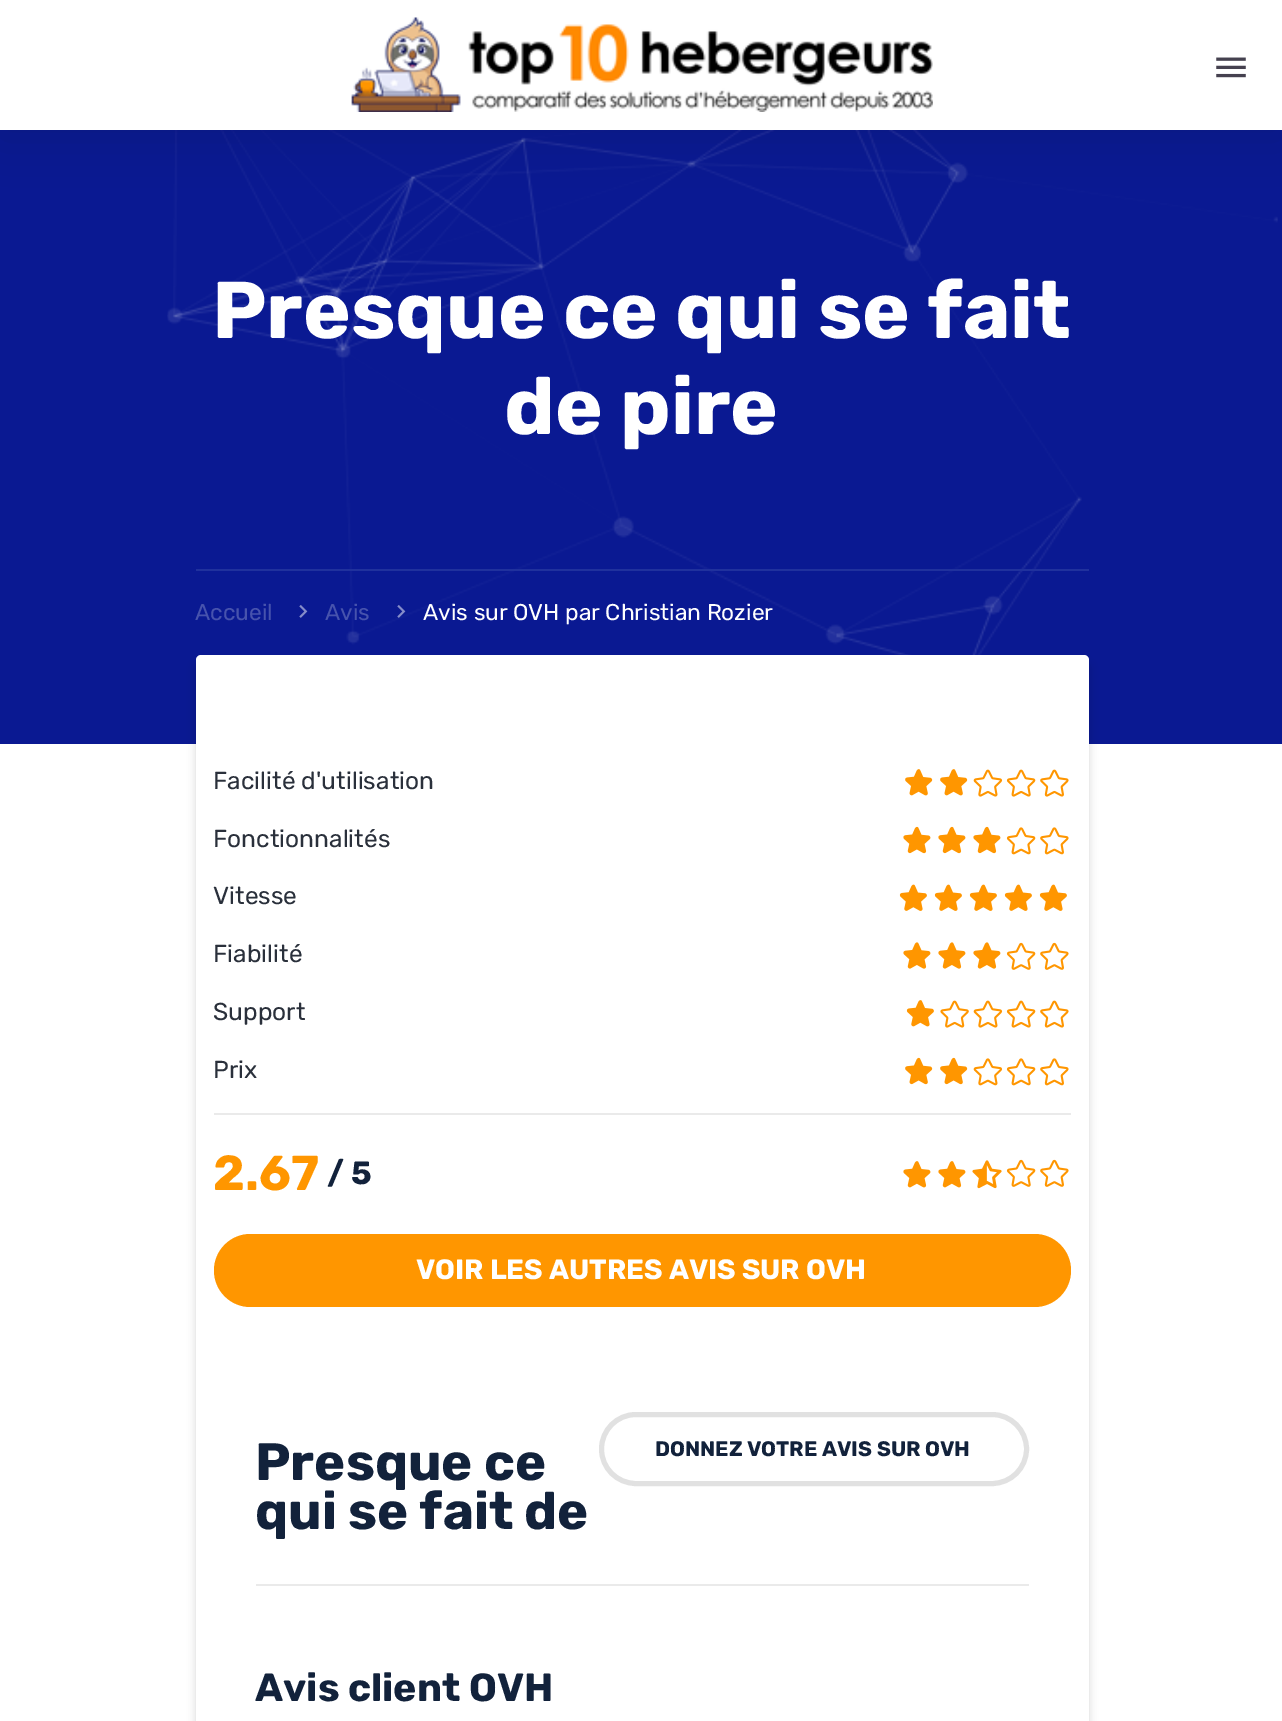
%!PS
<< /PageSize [1282 1721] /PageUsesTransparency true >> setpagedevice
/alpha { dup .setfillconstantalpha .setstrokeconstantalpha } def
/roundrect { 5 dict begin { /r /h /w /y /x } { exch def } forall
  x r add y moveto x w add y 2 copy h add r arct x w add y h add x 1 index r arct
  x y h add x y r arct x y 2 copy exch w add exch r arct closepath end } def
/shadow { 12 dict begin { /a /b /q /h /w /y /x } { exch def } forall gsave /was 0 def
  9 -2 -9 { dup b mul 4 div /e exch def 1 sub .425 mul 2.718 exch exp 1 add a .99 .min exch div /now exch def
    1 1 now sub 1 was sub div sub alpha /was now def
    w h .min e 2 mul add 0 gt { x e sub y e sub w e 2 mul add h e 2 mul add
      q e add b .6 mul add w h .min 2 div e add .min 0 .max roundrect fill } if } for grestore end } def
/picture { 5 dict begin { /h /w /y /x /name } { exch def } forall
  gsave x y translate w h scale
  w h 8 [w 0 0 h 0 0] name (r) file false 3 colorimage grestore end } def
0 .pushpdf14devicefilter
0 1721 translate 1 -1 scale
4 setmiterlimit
1 setgray
0 0 1282 1721 rectfill
0.039 0.098 0.573 setrgbcolor
0 130 1282 614 rectfill
(img3.rgb) 167 130 1111 525 picture
0 setgray
0 9 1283 129 0 22 0.1 shadow
1 setgray
0 0 1282 130 rectfill
(img1.rgb) 351 17 582 95 picture
(img2.rgb) 1216 57 30 21 picture
/Rubik-Bold [80.5 0 0 -80.5 0 0] selectfont
212 338 moveto (Presque ce qui se fait) show
504 434 moveto (de pire) show
0.125 0.192 0.616 setrgbcolor
196 569 893 2 rectfill
/Rubik-Regular [22.75 0 0 -22.75 0 0] selectfont
0.278 0.325 0.678 setrgbcolor
195 620 moveto (Accueil) show
(img4.rgb) 299 605 9 13 picture
325 620 moveto (Avis) show
(img5.rgb) 397 605 9 13 picture
1 setgray
423 620 moveto (Avis sur OVH par Christian Rozier) show
0 setgray
196 663 893 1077 5 4.5 0.15 shadow
1 setgray
196 655 893 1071 5 roundrect fill
/Rubik-Regular [24.5 0 0 -24.5 0 0] selectfont
0.165 0.188 0.231 setrgbcolor
213 789 moveto (Facilité d'utilisation) show
(img6.rgb) 905 769 28 27 picture
(img6.rgb) 940 769 28 27 picture
(img7.rgb) 973 769 30 28 picture
(img8.rgb) 1006 769 30 28 picture
(img9.rgb) 1040 769 29 28 picture
213 847 moveto (Fonctionnalités) show
(img10.rgb) 903 826 28 28 picture
(img10.rgb) 938 826 28 28 picture
(img10.rgb) 973 826 28 28 picture
(img11.rgb) 1006 827 30 28 picture
(img12.rgb) 1040 827 29 28 picture
213 904 moveto (Vitesse) show
(img13.rgb) 899 884 28 27 picture
(img13.rgb) 934 884 28 27 picture
(img13.rgb) 969 884 28 27 picture
(img13.rgb) 1004 884 28 27 picture
(img13.rgb) 1039 884 28 27 picture
213 962 moveto (Fiabilité) show
(img14.rgb) 903 942 28 27 picture
(img14.rgb) 938 942 28 27 picture
(img14.rgb) 973 942 28 27 picture
(img15.rgb) 1006 942 30 28 picture
(img16.rgb) 1040 942 29 28 picture
213 1020 moveto (Support) show
(img17.rgb) 906 1000 28 27 picture
(img18.rgb) 940 1000 29 28 picture
(img7.rgb) 973 1000 30 28 picture
(img8.rgb) 1006 1000 30 28 picture
(img9.rgb) 1040 1000 29 28 picture
213 1078 moveto (Prix) show
(img19.rgb) 905 1057 28 28 picture
(img19.rgb) 940 1057 28 28 picture
(img20.rgb) 973 1058 30 28 picture
(img11.rgb) 1006 1058 30 28 picture
(img12.rgb) 1040 1058 29 28 picture
0.918 setgray
214 1113 857 2 rectfill
/Rubik-Bold [49 0 0 -49 0 0] selectfont
1 0.588 0 setrgbcolor
213 1190 moveto (2.67) show
/Rubik-Bold [32 0 0 -32 0 0] selectfont
0.071 0.133 0.231 setrgbcolor
327 1184 moveto (/ 5) show
(img21.rgb) 903 1161 28 27 picture
(img21.rgb) 938 1161 28 27 picture
(img22.rgb) 972 1160 30 29 picture
(img15.rgb) 1006 1159 30 28 picture
(img16.rgb) 1040 1159 29 28 picture
1 0.588 0 setrgbcolor
214 1234 857 73 36.5 roundrect fill
/Rubik-Bold [28 0 0 -28 0 0] selectfont
1 setgray
416 1279 moveto (VOIR LES AUTRES AVIS SUR OVH) show
/Rubik-Bold [52.5 0 0 -52.5 0 0] selectfont
0.071 0.133 0.231 setrgbcolor
255 1480 moveto (Presque ce) show
255 1529 moveto (qui se fait de) show
0.882 setgray
5 setlinewidth
601.5 1414.5 425 69 34.5 roundrect stroke
/Rubik-Bold [21 0 0 -21 0 0] selectfont
0.071 0.133 0.231 setrgbcolor
655 1456 moveto (DONNEZ VOTRE AVIS SUR OVH) show
0.918 setgray
256 1584 773 2 rectfill
/Rubik-Bold [39.25 0 0 -39.25 0 0] selectfont
0.071 0.133 0.231 setrgbcolor
255 1701 moveto (Avis client OVH) show
.poppdf14devicefilter showpage
